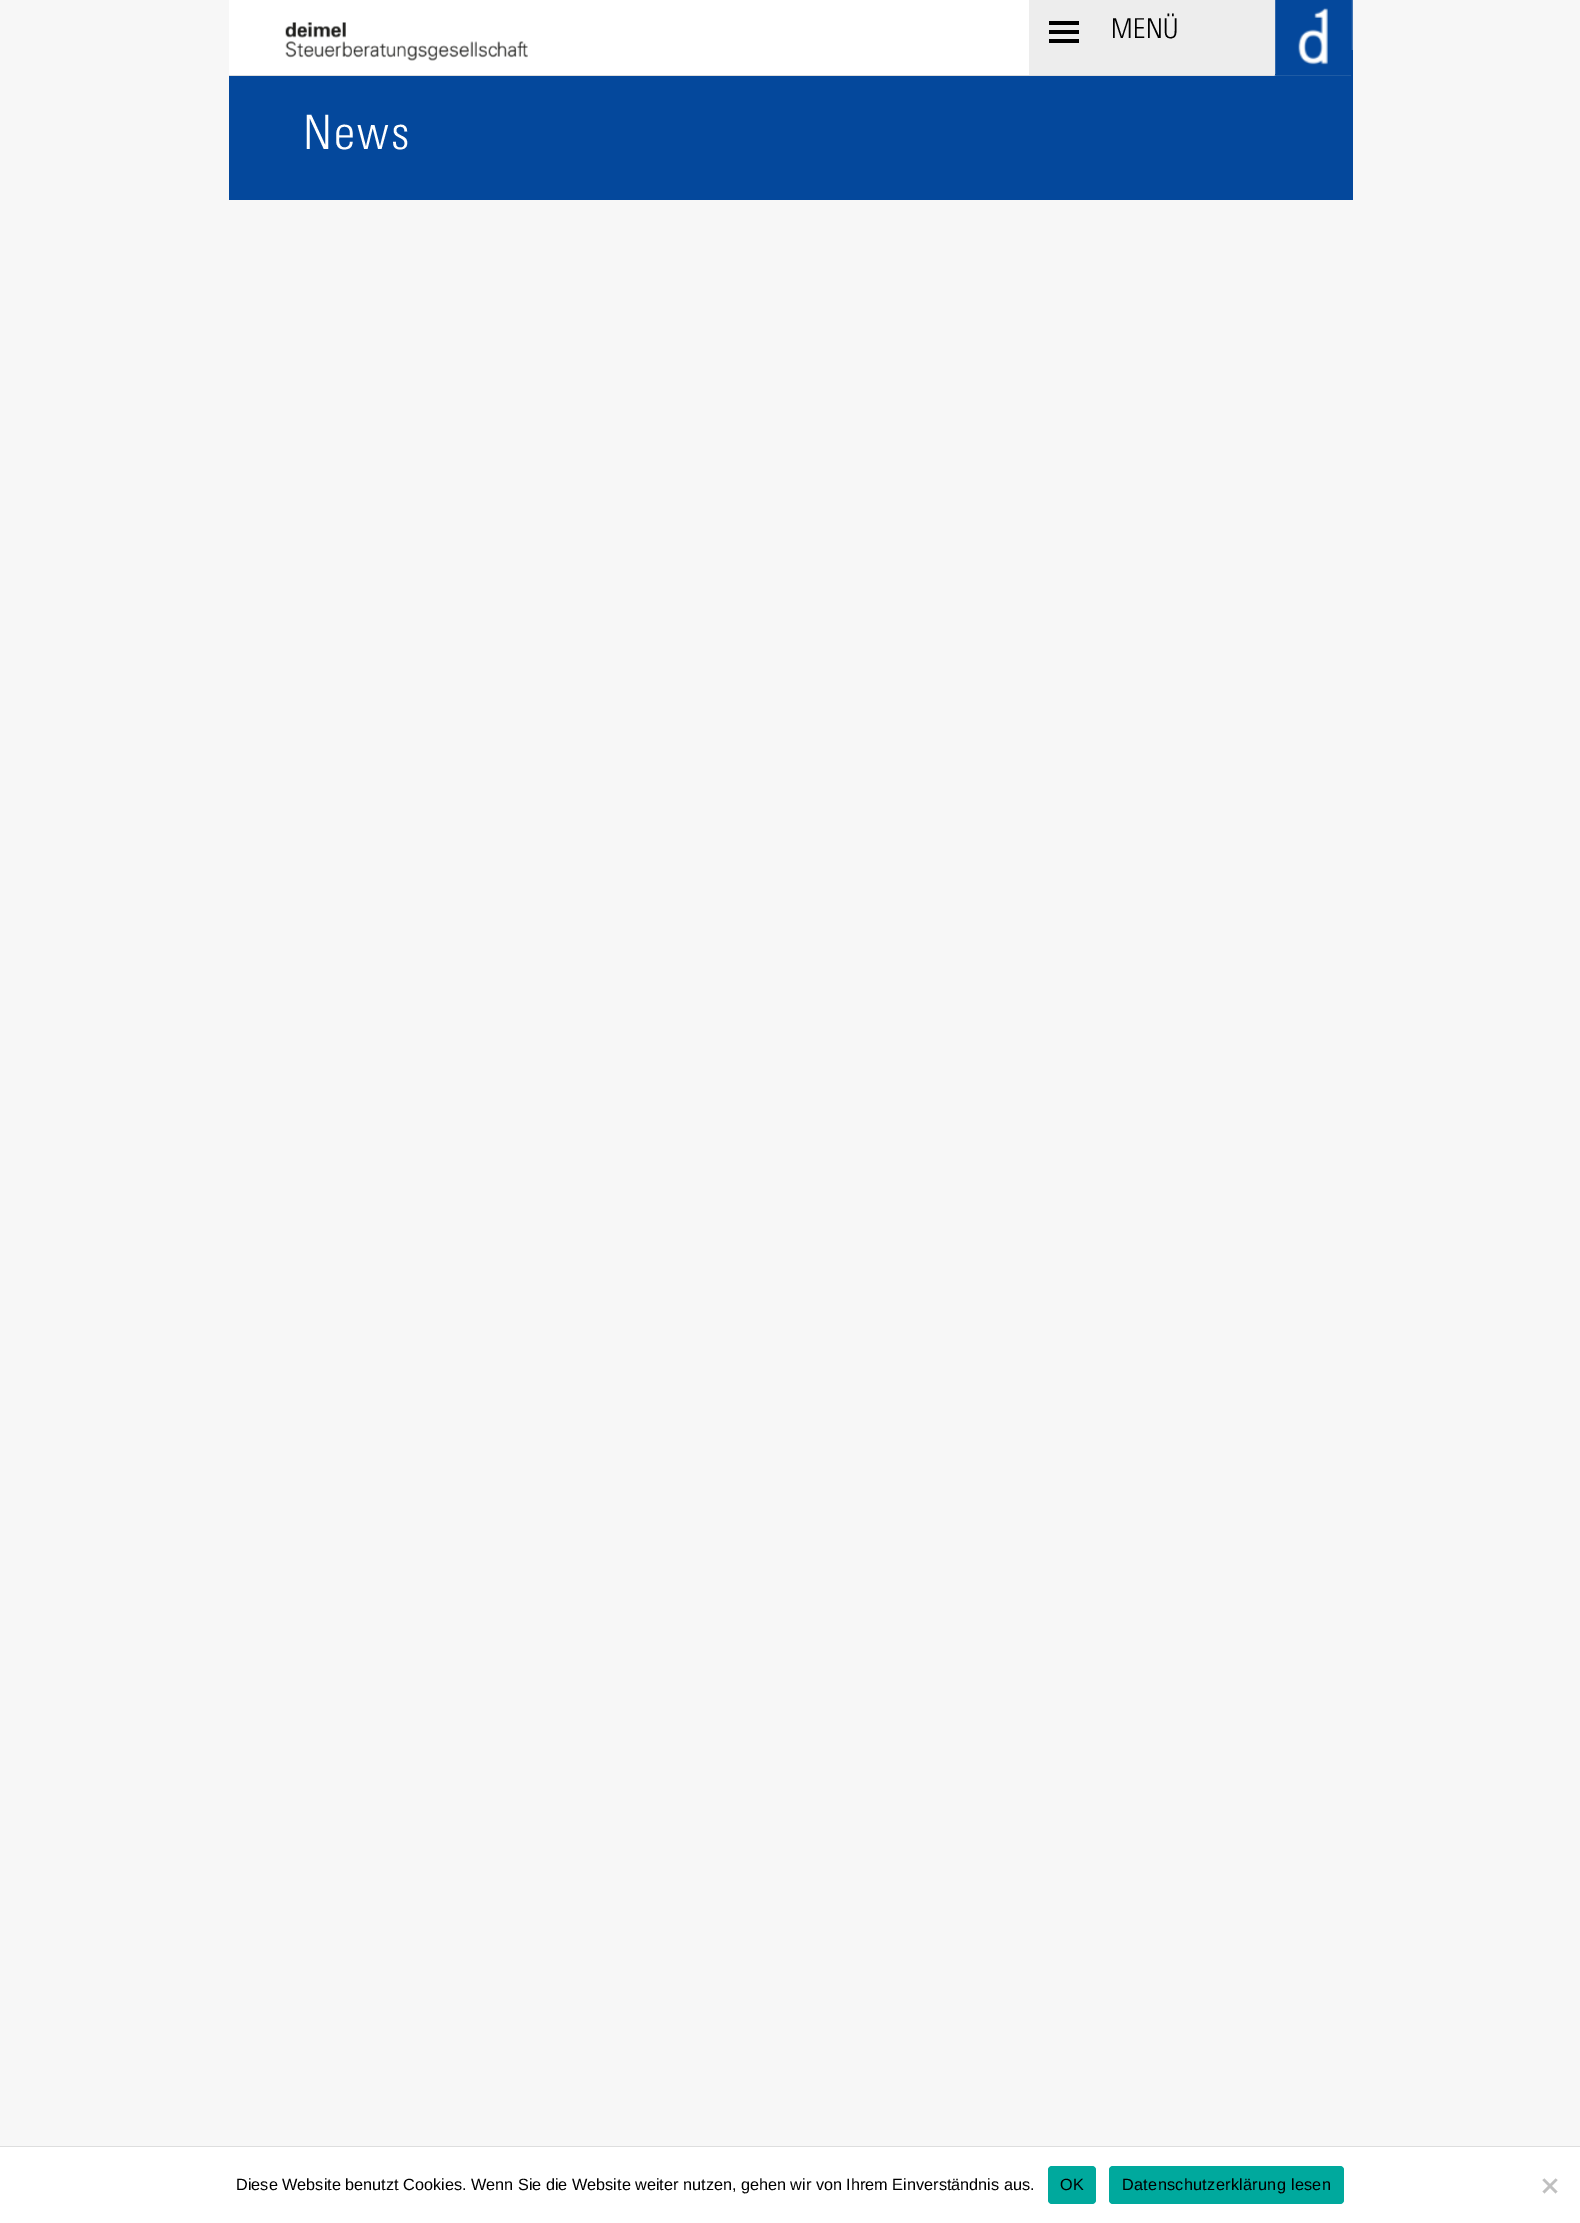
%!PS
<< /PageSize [1580 2223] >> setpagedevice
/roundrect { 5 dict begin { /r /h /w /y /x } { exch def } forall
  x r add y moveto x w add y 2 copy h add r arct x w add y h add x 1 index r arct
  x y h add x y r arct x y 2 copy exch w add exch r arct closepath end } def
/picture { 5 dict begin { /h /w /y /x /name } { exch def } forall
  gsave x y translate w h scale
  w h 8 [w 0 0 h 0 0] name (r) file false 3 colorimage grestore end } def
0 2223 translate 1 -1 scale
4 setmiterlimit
0.969 setgray
0 0 1580 2223 rectfill
0.016 0.282 0.612 setrgbcolor
229 50 1124 150 rectfill
1 setgray
229 0 1047 75 rectfill
0.871 setgray
229 75 1122 1 rectfill
(img1.rgb) 285 22 243 39 picture
(img2.rgb) 1274 0 79 76 picture
0.929 setgray
1029 0 246 75 rectfill
0 setgray
1049 21 30 4 rectfill
/Univers-Light [27.5 0 0 -27.5 0 0] selectfont
1111 38 moveto 0.5 0 (MENÜ) ashow
1049 30 30 4 rectfill
1049 39 30 4 rectfill
/Univers-Light [47.5 0 0 -47.5 0 0] selectfont
1 setgray
303 149 moveto 2 0 (News) ashow
0 2147 1580 76 rectfill
0.871 setgray
0 2146 1580 1 rectfill
/LiberationSans-Regular [16.25 0 0 -16.25 0 0] selectfont
0 setgray
236 2190 moveto (Diese Website benutzt Cookies. Wenn Sie die Website weiter nutzen, gehen wir von Ihrem Einverständnis aus.) show
0 0.663 0.616 setrgbcolor
1048 2166 48 38 4 roundrect fill
0 setgray
1060 2190 moveto 0.3 0 (OK) ashow
0 0.663 0.616 setrgbcolor
1109 2166 235 38 4 roundrect fill
0 setgray
1122 2190 moveto 0.3 0 (Datenschutzerklärung lesen) ashow
0.753 setgray
newpath 1555.5 2178.5 moveto 1557.5 2180 lineto 1544.5 2193.5 lineto 1542.5 2191.5 lineto closepath fill
newpath 1542.5 2180 moveto 1544.5 2178.5 lineto 1557.5 2191.5 lineto 1555.5 2193.5 lineto closepath fill
showpage
